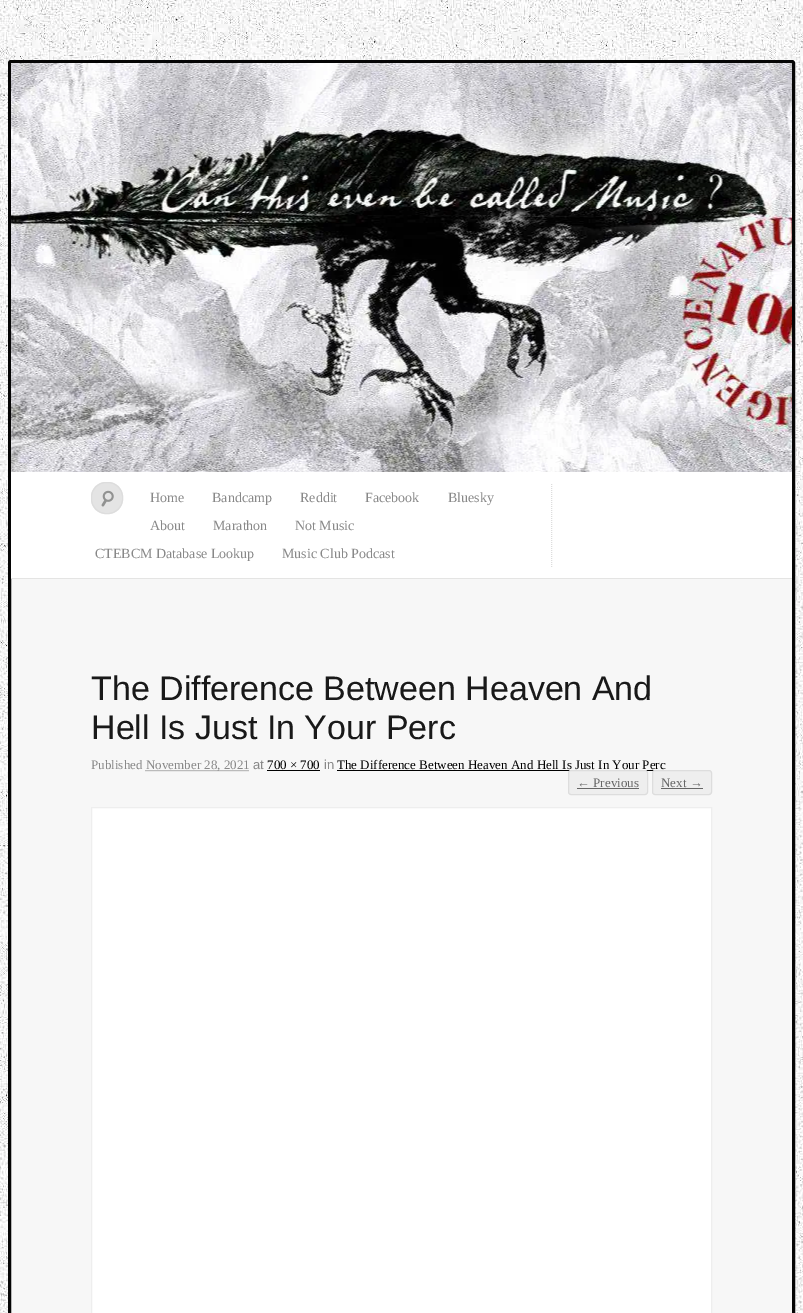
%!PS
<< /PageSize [803 1313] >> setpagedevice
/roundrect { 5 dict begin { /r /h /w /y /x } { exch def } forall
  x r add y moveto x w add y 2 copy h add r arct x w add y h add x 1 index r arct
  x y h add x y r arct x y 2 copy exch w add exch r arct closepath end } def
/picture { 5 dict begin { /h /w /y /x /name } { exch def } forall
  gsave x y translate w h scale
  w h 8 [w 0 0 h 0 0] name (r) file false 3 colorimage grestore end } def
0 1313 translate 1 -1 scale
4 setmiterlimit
1 setgray
0 0 803 1313 rectfill
(img1.rgb) 0 0 803 1313 picture
0.969 setgray
9.5 61.5 784 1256 1.5 roundrect gsave fill grestore
0.02 setgray
3 setlinewidth
stroke
(img2.rgb) 11 63 781 409 picture
1 setgray
11 472 781 106 rectfill
0.894 0.894 0.89 setrgbcolor
11 578 781 1 rectfill
0.894 setgray
91 482 32 32 15 roundrect fill
(img3.rgb) 101 490 13 17 picture
0.867 setgray
1 setlinewidth
91.5 482.5 31 31 14.5 roundrect stroke
[1 1] 0 setdash
newpath 551.5 484 moveto 551.5 568 lineto stroke
/LiberationSerif-Regular [14 0 0 -14 0 0] selectfont
0.533 setgray
150 502 moveto (Home) show
212 502 moveto (Bandcamp) show
300 502 moveto (Reddit) show
365 502 moveto (Facebook) show
448 502 moveto (Bluesky) show
150 530 moveto (About) show
213 530 moveto (Marathon) show
295 530 moveto (Not Music) show
95 558 moveto (CTEBCM Database Lookup) show
282 558 moveto (Music Club Podcast) show
/LiberationSans-Regular [34 0 0 -34 0 0] selectfont
0.098 setgray
91 700 moveto (The Difference Between Heaven And) show
91 739 moveto (Hell Is Just In Your Perc) show
/LiberationSerif-Regular [13 0 0 -13 0 0] selectfont
0.533 setgray
91 769 moveto (Published) show
newpath 145.5 770.5 moveto 249 770.5 lineto stroke
146 769 moveto (November 28, 2021) show
/LiberationSans-Regular [13 0 0 -13 0 0] selectfont
253 769 moveto (at) show
/LiberationSerif-Regular [13 0 0 -13 0 0] selectfont
0 setgray
267 769 moveto (700 × 700) show
267 770 53 1 rectfill
/LiberationSans-Regular [13 0 0 -13 0 0] selectfont
0.533 setgray
324 769 moveto (in) show
/LiberationSerif-Regular [13 0 0 -13 0 0] selectfont
0 setgray
337 769 moveto (The Difference Between Heaven And Hell Is Just In Your Perc) show
337 770 318 1 rectfill
0.933 setgray
568.5 770.5 79 24 2.5 roundrect gsave fill grestore
0.867 setgray
[] 0 setdash
stroke
0.4 setgray
577 787 moveto (← Previous) show
577 788 62 1 rectfill
0.933 setgray
652.5 770.5 59 24 2.5 roundrect gsave fill grestore
0.867 setgray
stroke
0.4 setgray
661 787 moveto (Next →) show
661 788 42 1 rectfill
1 setgray
newpath 91.5 807.5 moveto 711.5 807.5 lineto 711.5 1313.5 lineto 91.5 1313.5 lineto closepath gsave fill grestore
0.933 setgray
stroke
showpage
